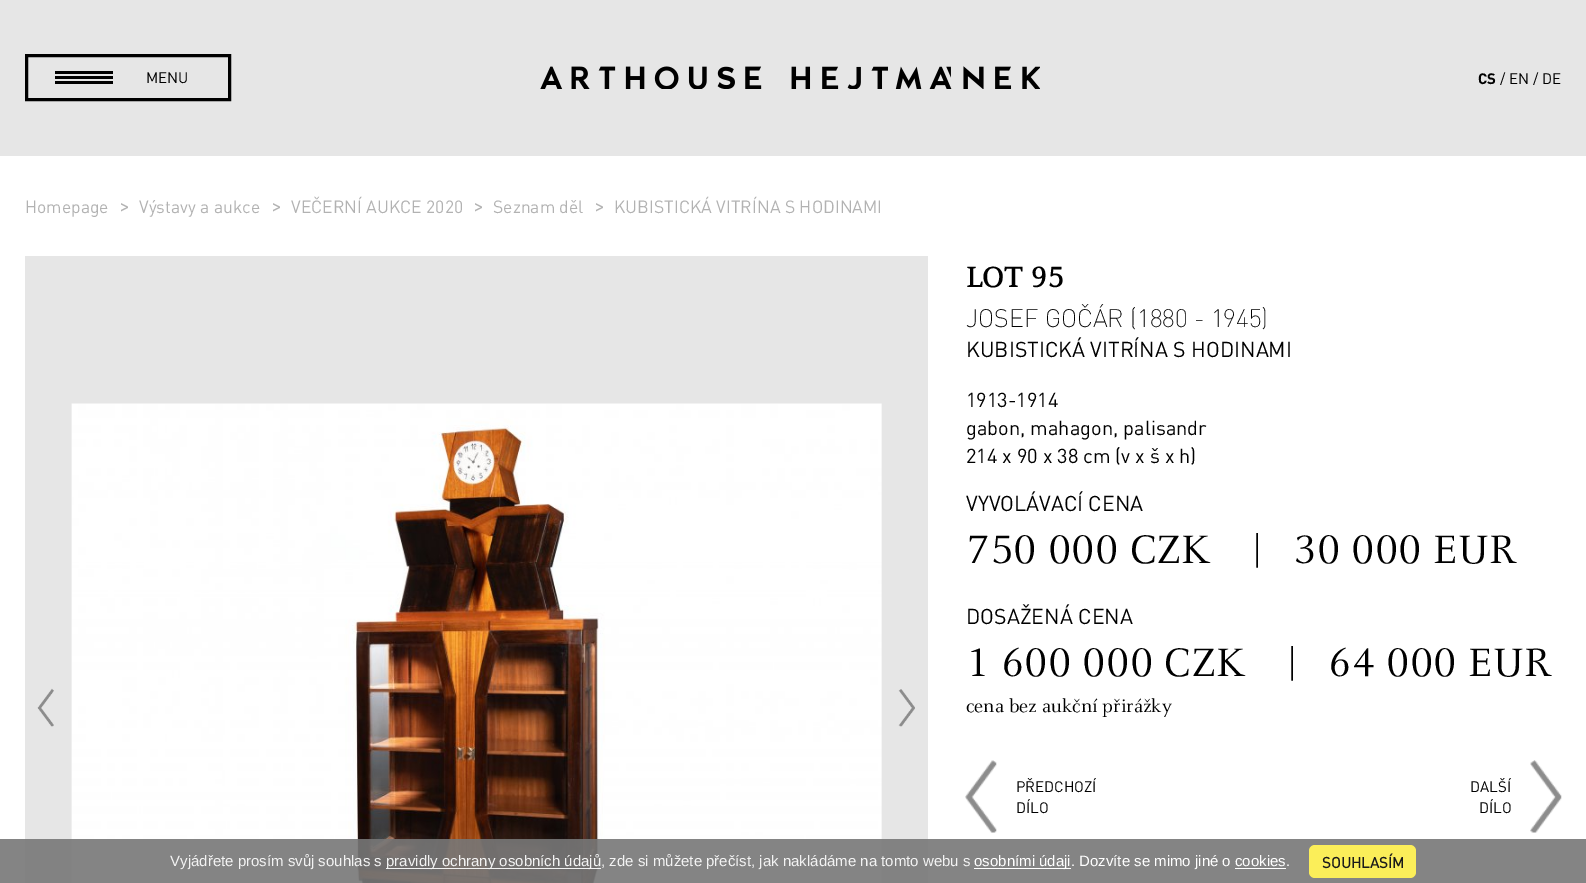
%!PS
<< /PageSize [1586 883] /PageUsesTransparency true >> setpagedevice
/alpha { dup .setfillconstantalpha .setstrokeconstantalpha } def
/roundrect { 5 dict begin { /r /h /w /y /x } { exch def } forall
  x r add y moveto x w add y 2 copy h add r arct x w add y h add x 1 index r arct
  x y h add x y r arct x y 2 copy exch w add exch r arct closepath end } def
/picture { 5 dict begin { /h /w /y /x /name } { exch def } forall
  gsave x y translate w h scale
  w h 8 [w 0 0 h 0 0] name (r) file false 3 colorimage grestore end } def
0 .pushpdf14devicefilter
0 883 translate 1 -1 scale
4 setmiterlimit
0.902 setgray
0 0 1586 883 rectfill
0 setgray
55 71 58 3 rectfill
55 76 58 3 rectfill
55 81 58 3 rectfill
3 setlinewidth
26.5 55.5 203 44 rectstroke
/DIN-Regular [15 0 0 -15 0 0] selectfont
146 83 moveto (MENU) show
(img1.rgb) 540 66 500 23 picture
/DIN-Bold [15 0 0 -15 0 0] selectfont
1478 84 moveto (CS) show
/DIN-Regular [15 0 0 -15 0 0] selectfont
1500 84 moveto (/ EN / DE) show
1 setgray
0 156 1586 727 rectfill
/DIN-Regular [17.5 0 0 -17.5 0 0] selectfont
0.698 setgray
25 213 moveto (Homepage) show
/DIN-Regular [21.25 0 0 -21.25 0 0] selectfont
119 213 moveto (>) show
/DIN-Regular [17.5 0 0 -17.5 0 0] selectfont
139 213 moveto (Výstavy a aukce) show
/DIN-Regular [21.25 0 0 -21.25 0 0] selectfont
271 213 moveto (>) show
/DIN-Regular [17.5 0 0 -17.5 0 0] selectfont
291 213 moveto (VEČERNÍ AUKCE 2020) show
/DIN-Regular [21.25 0 0 -21.25 0 0] selectfont
473 213 moveto (>) show
/DIN-Regular [17.5 0 0 -17.5 0 0] selectfont
493 213 moveto (Seznam děl) show
/DIN-Regular [21.25 0 0 -21.25 0 0] selectfont
594 213 moveto (>) show
/DIN-Regular [17.5 0 0 -17.5 0 0] selectfont
614 213 moveto (KUBISTICKÁ VITRÍNA S HODINAMI) show
0.902 setgray
25 256 903 627 rectfill
(img2.rgb) 37 688 17 39 picture
(img3.rgb) 71 403 811 480 picture
(img4.rgb) 898 689 17 38 picture
/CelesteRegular-Bold [31 0 0 -31 0 0] selectfont
0 setgray
966 287 moveto (LOT 95) show
/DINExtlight-Light [25 0 0 -25 0 0] selectfont
966 327 moveto (JOSEF GOČÁR \(1880 - 1945\)) show
/DIN-Regular [21.25 0 0 -21.25 0 0] selectfont
966 357 moveto (KUBISTICKÁ VITRÍNA S HODINAMI) show
/DIN-Regular [20 0 0 -20 0 0] selectfont
966 407 moveto (1913-1914) show
966 435 moveto (gabon, mahagon, palisandr) show
966 463 moveto (214 x 90 x 38 cm \(v x š x h\)) show
/DIN-Regular [21.25 0 0 -21.25 0 0] selectfont
966 511 moveto (VYVOLÁVACÍ CENA) show
/CelesteRegular-Regular [43.75 0 0 -43.75 0 0] selectfont
966 563 moveto (750 000 CZK) show
1254 563 moveto (|) show
1293 563 moveto (30 000 EUR) show
/DIN-Regular [21.25 0 0 -21.25 0 0] selectfont
966 624 moveto (DOSAŽENÁ CENA) show
/CelesteRegular-Regular [43.75 0 0 -43.75 0 0] selectfont
966 676 moveto (1 600 000 CZK) show
1289 676 moveto (|) show
1328 676 moveto (64 000 EUR) show
/CelesteRegular-Regular [20 0 0 -20 0 0] selectfont
966 712 moveto (cena bez aukční přirážky) show
(img5.rgb) 965 760 32 73 picture
/DIN-Regular [15 0 0 -15 0 0] selectfont
1016 792 moveto (PŘEDCHOZÍ) show
1016 813 moveto (DÍLO) show
1470 792 moveto (DALŠÍ) show
1479 813 moveto (DÍLO) show
(img6.rgb) 1530 760 32 73 picture
0.9 alpha
0.467 setgray
0 839 1586 44 rectfill
/LiberationSans-Regular [15 0 0 -15 0 0] selectfont
1 alpha
0.953 setgray
170 866 moveto (Vyjádřete prosím svůj souhlas s) show
0.9 alpha
1 setgray
386 868 215 1 rectfill
1 alpha
0.953 setgray
386 866 moveto (pravidly ochrany osobních údajů) show
601 866 moveto (, zde si můžete přečíst, jak nakládáme na tomto webu s) show
1 setgray
974 868 97 1 rectfill
974 866 moveto (osobními údaji. Dozvíte se mimo jiné o cookies.) show
1235 868 51 1 rectfill
0.984 0.933 0.349 setrgbcolor
1309 845 107 33 6 roundrect fill
/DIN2-Bold [15 0 0 -15 0 0] selectfont
0.102 setgray
1322 868 moveto (SOUHLASÍM) show
.poppdf14devicefilter showpage
